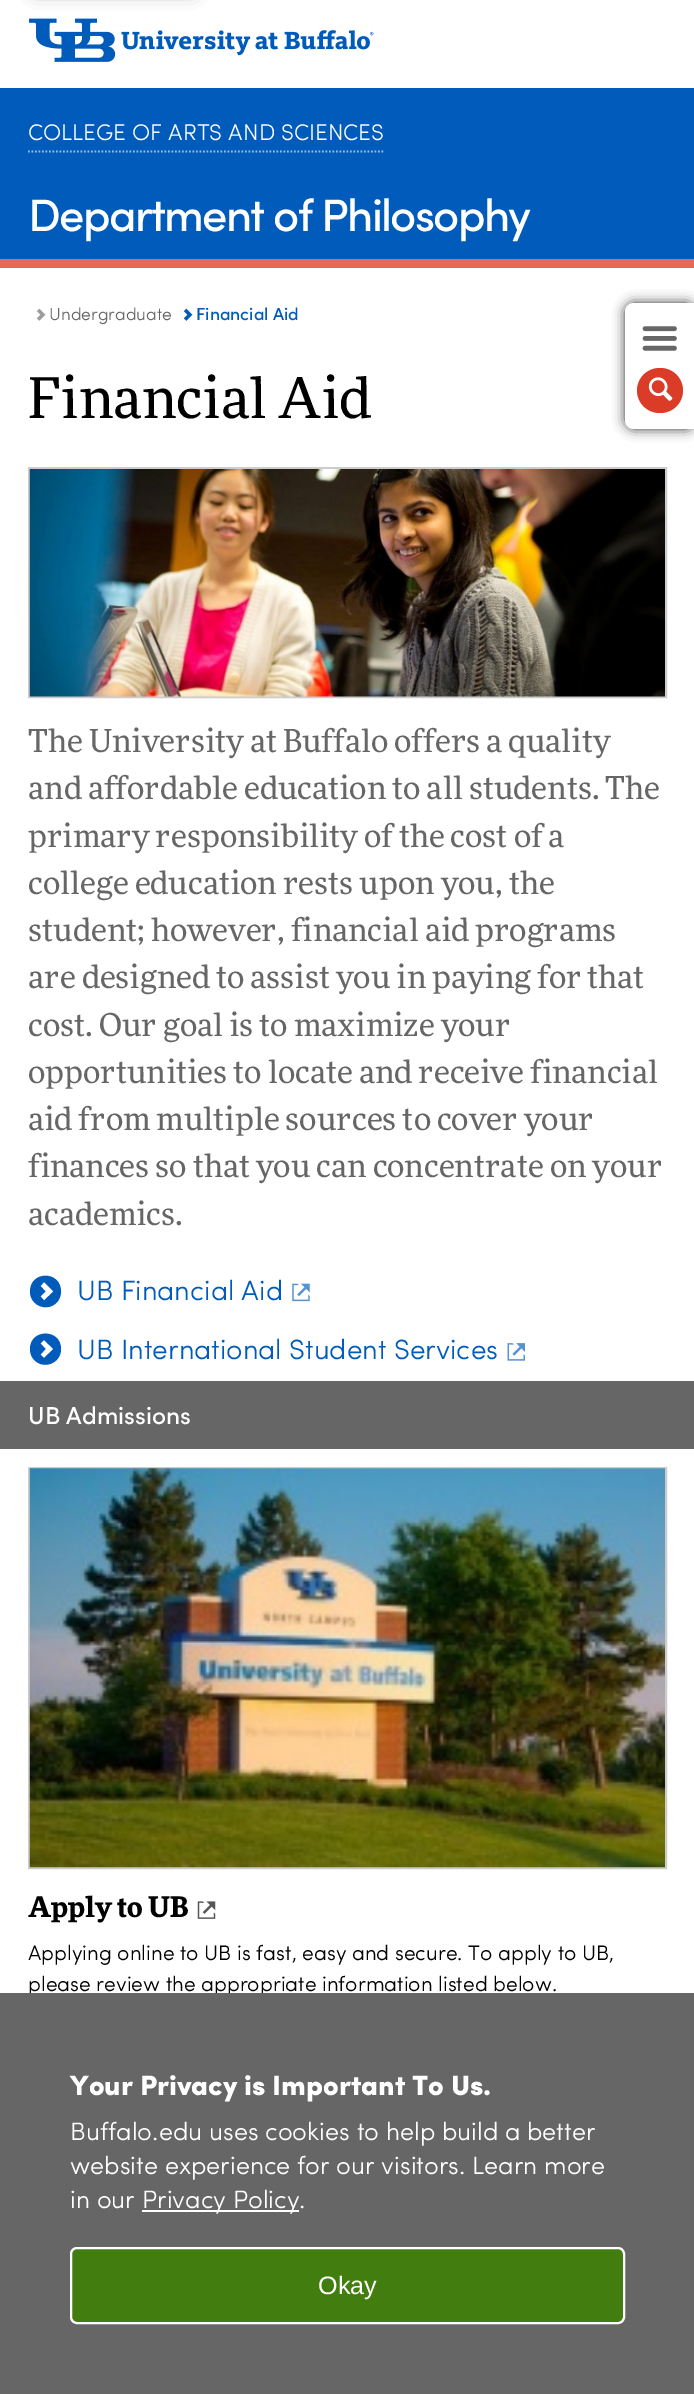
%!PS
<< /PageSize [694 2394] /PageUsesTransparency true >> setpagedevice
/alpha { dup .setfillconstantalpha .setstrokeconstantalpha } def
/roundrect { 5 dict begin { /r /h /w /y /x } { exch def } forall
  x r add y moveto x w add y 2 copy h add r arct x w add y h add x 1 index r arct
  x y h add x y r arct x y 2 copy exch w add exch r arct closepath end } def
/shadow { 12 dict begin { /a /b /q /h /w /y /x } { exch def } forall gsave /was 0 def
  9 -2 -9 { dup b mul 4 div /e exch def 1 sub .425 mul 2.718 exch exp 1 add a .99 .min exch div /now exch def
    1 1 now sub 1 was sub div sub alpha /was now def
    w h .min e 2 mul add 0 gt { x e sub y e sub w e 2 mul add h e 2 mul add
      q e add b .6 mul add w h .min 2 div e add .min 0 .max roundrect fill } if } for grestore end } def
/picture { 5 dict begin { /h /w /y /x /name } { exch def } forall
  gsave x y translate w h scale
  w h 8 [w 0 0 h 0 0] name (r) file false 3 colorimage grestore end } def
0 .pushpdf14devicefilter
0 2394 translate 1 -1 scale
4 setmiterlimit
1 setgray
0 0 694 2394 rectfill
0 setgray
35 -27 158 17 0 9 0.5 shadow
(img1.rgb) 29 18 345 44 picture
0 0.357 0.733 setrgbcolor
0 88 694 171 rectfill
0.6 0.741 0.894 setrgbcolor
1.8 setlinewidth
[1.75 1.75] 0 setdash
newpath 28 151.5 moveto 385 151.5 lineto stroke
/Sofia-Regular [22.75 0 0 -22.75 0 0] selectfont
1 setgray
28 140 moveto (COLLEGE OF ARTS AND SCIENCES) show
/Sofia-Medium [45.5 0 0 -45.5 0 0] selectfont
28 231 moveto -1.75 0 (Department of Philosophy) ashow
0.898 0.416 0.329 setrgbcolor
0 259 694 9 rectfill
0.2 setgray
625 303 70 126 9 6 1 shadow
1 setgray
newpath 634 303 moveto 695 303 lineto 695 429 lineto 634 429 lineto 629 429 625 425 625 420 curveto 625 312 lineto 625 307 629 303 634 303 curveto closepath fill
(img2.rgb) 642 326 35 25 picture
0.855 0.235 0.157 setrgbcolor
637 368 46 45 22.5 roundrect fill
(img3.rgb) 648 377 25 24 picture
(img4.rgb) 36 308 10 13 picture
/Sofia-Regular [17.5 0 0 -17.5 0 0] selectfont
0.4 setgray
49 320 moveto (Undergraduate) show
(img5.rgb) 183 308 10 13 picture
/Sofia-Medium [17.5 0 0 -17.5 0 0] selectfont
0 0.357 0.733 setrgbcolor
196 320 moveto (Financial Aid) show
/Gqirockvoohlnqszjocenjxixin-Regular [56 0 0 -56 0 0] selectfont
0 setgray
28 418 moveto (Financial Aid) show
0.8 setgray
2 setlinewidth
[] 0 setdash
29 468 637 229 rectstroke
(img6.rgb) 29 469 636 228 picture
/Gqirockvoohlnqszjocenjxixin-Regular [31.5 0 0 -31.5 0 0] selectfont
0.4 setgray
28 752 moveto (The University at Buffalo offers a quality) show
28 799 moveto (and affordable education to all students. The) show
28 847 moveto (primary responsibility of the cost of a) show
28 894 moveto (college education rests upon you, the) show
28 941 moveto (student; however, financial aid programs) show
28 988 moveto (are designed to assist you in paying for that) show
28 1036 moveto (cost. Our goal is to maximize your) show
28 1083 moveto (opportunities to locate and receive financial) show
28 1130 moveto (aid from multiple sources to cover your) show
28 1177 moveto (finances so that you can concentrate on your) show
28 1225 moveto (academics.) show
0 0.357 0.733 setrgbcolor
newpath 53.5 1291.5 moveto 44 1300.5 lineto 40.5 1296.5 lineto 45.5 1291.5 lineto 40.5 1286 lineto 44 1282 lineto closepath 61 1291.5 moveto 61 1270.5 30 1270.5 30 1291.5 curveto 30 1306.5 49 1313 58 1301 curveto 60 1298 61 1294.5 61 1291.5 curveto closepath fill
/Sofia-Regular [28 0 0 -28 0 0] selectfont
77 1300 moveto (UB Financial Aid) show
(img7.rgb) 292 1283 18 19 picture
newpath 53.5 1349 moveto 44 1358 lineto 40.5 1354.5 lineto 45.5 1349 lineto 40.5 1343.5 lineto 44 1340 lineto closepath 61 1349 moveto 61 1328.5 30 1328.5 30 1349 curveto 30 1352.5 31 1356 33 1358.5 curveto 42 1370.5 61 1364 61 1349 curveto closepath fill
77 1359 moveto (UB International Student Services) show
(img8.rgb) 507 1343 18 18 picture
0.4 setgray
0 1381 694 68 rectfill
/Sofia-Medium [24.5 0 0 -24.5 0 0] selectfont
1 setgray
28 1424 moveto (UB Admissions) show
0.8 setgray
29 1468 637 400 rectstroke
(img9.rgb) 29 1468 636 400 picture
/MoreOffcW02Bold-Bold [28 0 0 -28 0 0] selectfont
0 setgray
28 1917 moveto (Apply to UB) show
(img10.rgb) 197 1901 19 18 picture
/Sofia-Regular [21 0 0 -21 0 0] selectfont
28 1960 moveto (Applying online to UB is fast, easy and secure. To apply to UB,) show
28 1991 moveto (please review the appropriate information listed below.) show
0.4 setgray
0 1993 694 401 rectfill
/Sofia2-Regular [28 0 0 -28 0 0] selectfont
1 setgray
70 2095 moveto (Your Privacy is Important To Us.) show
/Sofia-Regular [25.2 0 0 -25.2 0 0] selectfont
70 2140 moveto (Buffalo.edu uses cookies to help build a better) show
70 2174 moveto (website experience for our visitors. Learn more) show
70 2208 moveto (in our) show
142 2210 157 2 rectfill
142 2208 moveto (Privacy Policy.) show
0.259 0.49 0.063 setrgbcolor
71 2248 553 75 6 roundrect gsave fill grestore
1 setgray
stroke
/LiberationSans-Regular [25.2 0 0 -25.2 0 0] selectfont
318 2294 moveto (Okay) show
.poppdf14devicefilter showpage
